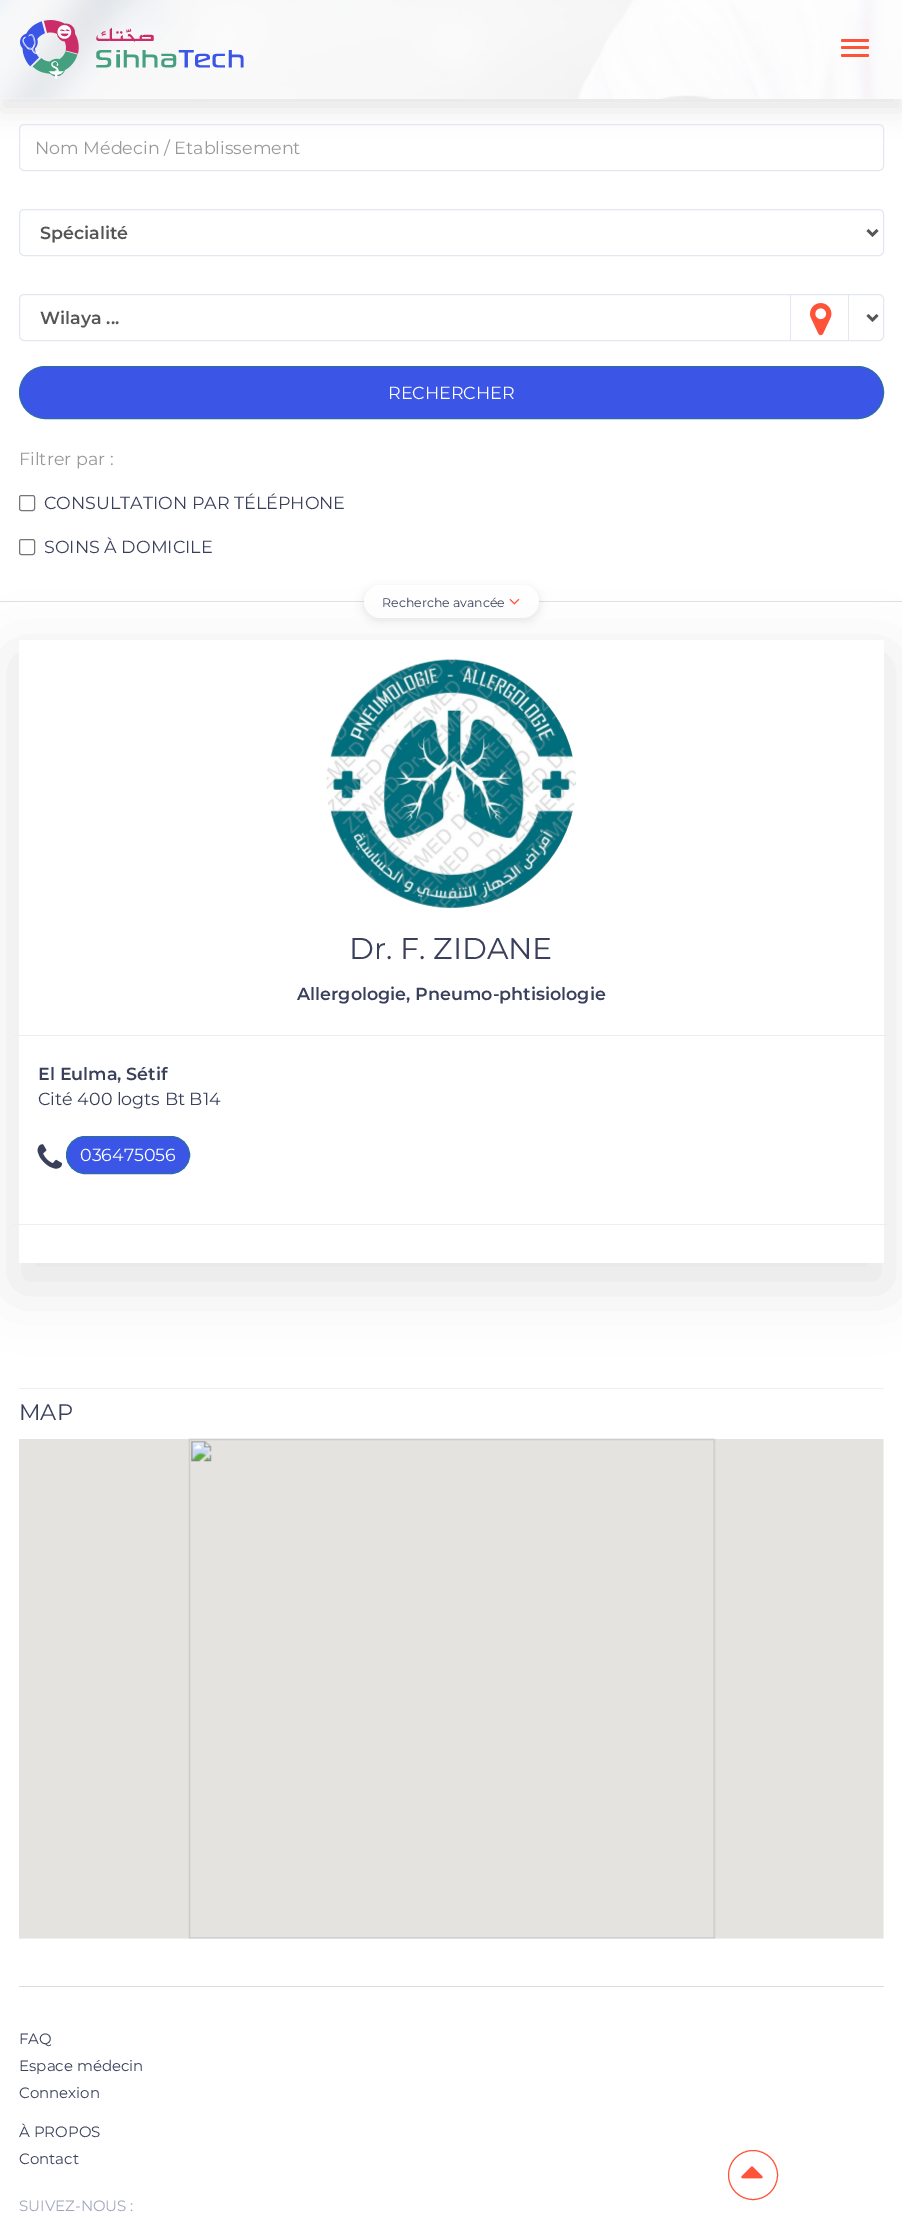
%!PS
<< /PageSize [902 2224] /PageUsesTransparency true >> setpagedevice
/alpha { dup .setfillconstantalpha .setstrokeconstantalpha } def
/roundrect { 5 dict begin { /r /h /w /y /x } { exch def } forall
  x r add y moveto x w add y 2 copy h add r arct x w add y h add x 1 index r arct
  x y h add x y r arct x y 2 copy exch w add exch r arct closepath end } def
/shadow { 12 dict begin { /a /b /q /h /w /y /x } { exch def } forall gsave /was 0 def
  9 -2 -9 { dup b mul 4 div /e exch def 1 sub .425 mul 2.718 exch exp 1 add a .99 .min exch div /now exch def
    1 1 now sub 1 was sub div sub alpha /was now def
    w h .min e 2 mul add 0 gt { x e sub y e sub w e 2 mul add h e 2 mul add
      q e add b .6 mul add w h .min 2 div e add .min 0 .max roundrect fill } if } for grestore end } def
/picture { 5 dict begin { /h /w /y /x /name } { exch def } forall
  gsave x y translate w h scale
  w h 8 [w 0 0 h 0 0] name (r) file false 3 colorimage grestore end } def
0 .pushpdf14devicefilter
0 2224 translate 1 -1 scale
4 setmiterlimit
1 setgray
0 0 902 2224 rectfill
0 setgray
0 13 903 98 0 12.5 0.09 shadow
(img1.rgb) 0 0 902 99 picture
0.5 alpha
1 setgray
0 0 902 99 rectfill
1 alpha
(img2.rgb) 20 20 224 59 picture
0.996 0.325 0.224 setrgbcolor
841 39 28 3 1.5 roundrect fill
841 46 28 3 1.5 roundrect fill
841 54 28 3 1.5 roundrect fill
0.878 setgray
0 601 902 1 rectfill
0.89 0.91 0.941 setrgbcolor
19.5 124.5 864 46 4.5 roundrect stroke
/Montserrat-Regular [17.5 0 0 -17.5 0 0] selectfont
0.6 setgray
35 154 moveto (Nom Médecin / Etablissement) show
0.89 0.91 0.941 setrgbcolor
19.5 209.5 864 46 4.5 roundrect stroke
0.333 setgray
2.5 setlinewidth
newpath 867.5 230 moveto 872.5 235 lineto 877.5 230 lineto stroke
/Montserrat-SemiBold [17.5 0 0 -17.5 0 0] selectfont
40 239 moveto (Spécialité) show
0.89 0.91 0.941 setrgbcolor
1 setlinewidth
19.5 294.5 864 46 4.5 roundrect stroke
0.333 setgray
2.5 setlinewidth
newpath 867.5 315 moveto 872.5 320 lineto 877.5 315 lineto stroke
40 324 moveto (Wilaya ...) show
0.89 0.91 0.941 setrgbcolor
848 294 1 47 rectfill
790 294 1 47 rectfill
(img3.rgb) 810 303 22 33 picture
0.231 0.333 0.902 setrgbcolor
19.5 366.5 864 52 26 roundrect gsave fill grestore
0.18 0.427 0.643 setrgbcolor
1 setlinewidth
stroke
/Montserrat-Regular [17.5 0 0 -17.5 0 0] selectfont
1 setgray
388 399 moveto (RECHERCHER) show
0.6 setgray
19 465 moveto (Filtrer par :) show
0.463 setgray
19.5 495.5 15 15 2 roundrect stroke
0.227 0.251 0.357 setrgbcolor
44 509 moveto (CONSULTATION PAR TÉLÉPHONE) show
0.463 setgray
19.5 539.5 15 15 2 roundrect stroke
0.227 0.251 0.357 setrgbcolor
44 553 moveto (SOINS À DOMICILE) show
0 setgray
364 588 175 32 16 4.5 0.1 shadow
1 setgray
364 585 175 33 16.5 roundrect fill
/Montserrat-Regular [12.5 0 0 -12.5 0 0] selectfont
0.227 0.251 0.357 setrgbcolor
382 607 moveto (Recherche avancée) show
(img4.rgb) 509 598 11 7 picture
gsave
newpath 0 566 moveto 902 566 lineto 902 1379 lineto 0 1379 lineto closepath 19 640 moveto 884 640 lineto 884 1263 lineto 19 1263 lineto closepath eoclip newpath
0 setgray
14 656 875 633 0 29.5 0.1 shadow
grestore
(img5.rgb) 326 659 250 250 picture
/Montserrat-Regular [30 0 0 -30 0 0] selectfont
349 959 moveto (Dr. F. ZIDANE) show
/Montserrat-SemiBold [17.5 0 0 -17.5 0 0] selectfont
297 1000 moveto (Allergologie, Pneumo-phtisiologie) show
0.933 setgray
13 1035 877 1 rectfill
13 1224 877 1 rectfill
0.227 0.251 0.357 setrgbcolor
38 1080 moveto (El Eulma, Sétif) show
/Montserrat-Regular [17.5 0 0 -17.5 0 0] selectfont
38 1105 moveto (Cité 400 logts Bt B14) show
(img6.rgb) 37 1144 25 25 picture
0.231 0.333 0.902 setrgbcolor
66.5 1136.5 123 37 18.5 roundrect gsave fill grestore
0.18 0.427 0.643 setrgbcolor
stroke
1 setgray
80 1161 moveto (036475056) show
0.937 setgray
19 1388 865 1 rectfill
/Montserrat-Regular [22.5 0 0 -22.5 0 0] selectfont
0.227 0.251 0.357 setrgbcolor
19 1420 moveto (MAP) show
(img7.rgb) 19 1438 865 501 picture
0.867 setgray
19 1986 865 1 rectfill
/Montserrat-Regular [15 0 0 -15 0 0] selectfont
0.227 0.251 0.357 setrgbcolor
19 2044 moveto (FAQ) show
19 2071 moveto (Espace médecin) show
19 2098 moveto (Connexion) show
19 2137 moveto (À PROPOS) show
19 2164 moveto (Contact) show
0.631 0.651 0.733 setrgbcolor
19 2211 moveto (SUIVEZ-NOUS :) show
0.996 0.325 0.224 setrgbcolor
newpath 753 2175 24.5 0 360 arc closepath stroke
(img8.rgb) 741 2166 22 13 picture
.poppdf14devicefilter showpage
